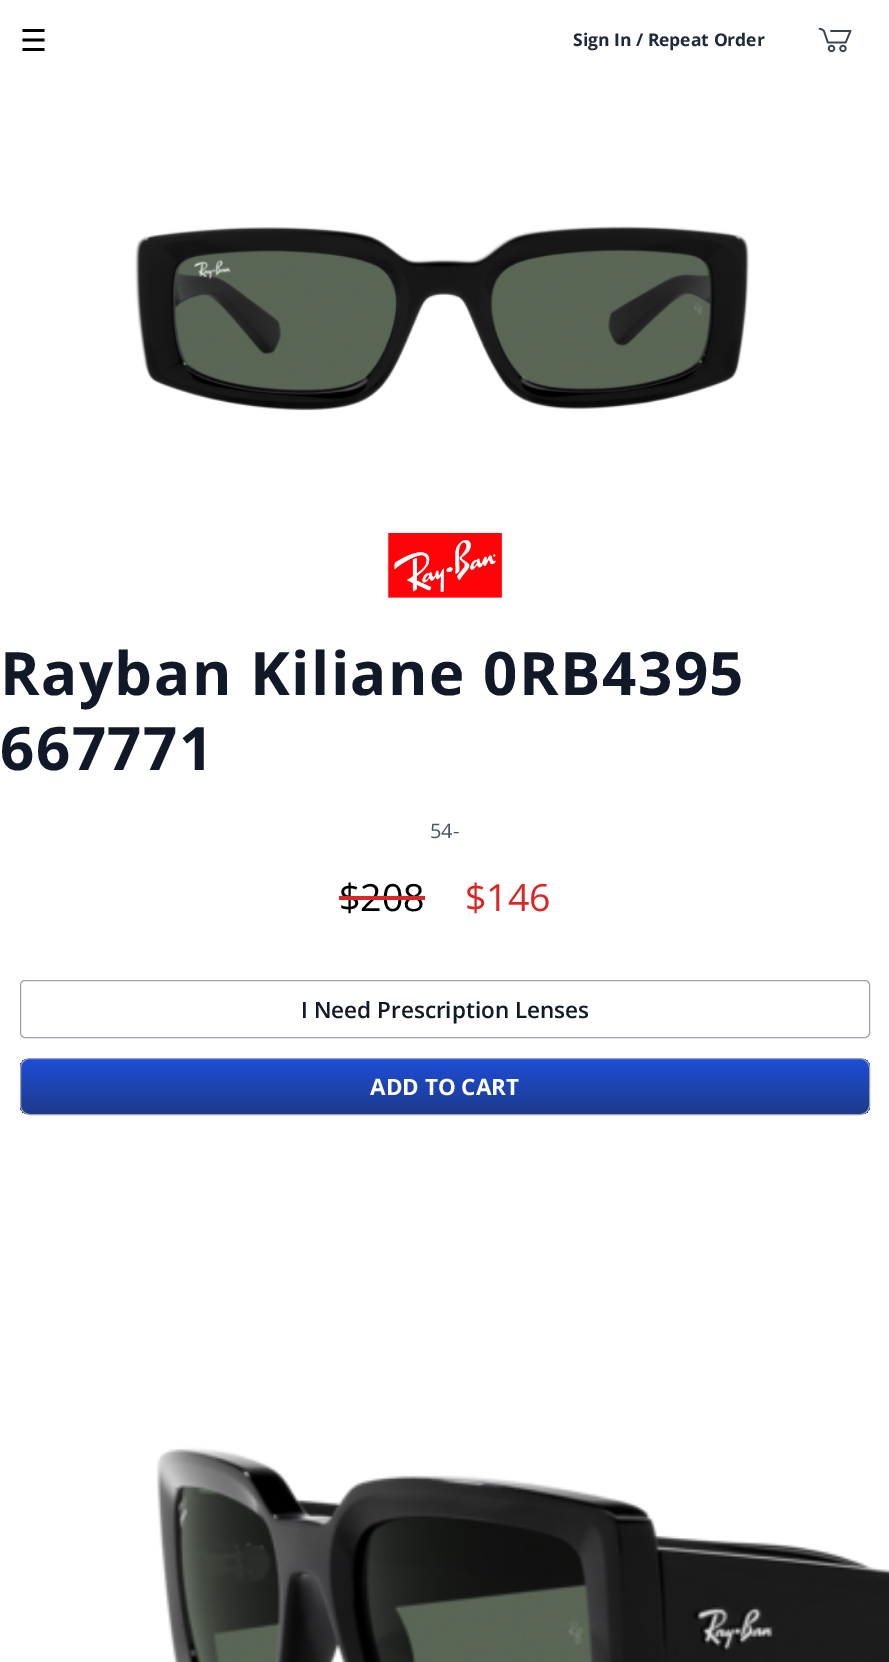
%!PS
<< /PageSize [889 1662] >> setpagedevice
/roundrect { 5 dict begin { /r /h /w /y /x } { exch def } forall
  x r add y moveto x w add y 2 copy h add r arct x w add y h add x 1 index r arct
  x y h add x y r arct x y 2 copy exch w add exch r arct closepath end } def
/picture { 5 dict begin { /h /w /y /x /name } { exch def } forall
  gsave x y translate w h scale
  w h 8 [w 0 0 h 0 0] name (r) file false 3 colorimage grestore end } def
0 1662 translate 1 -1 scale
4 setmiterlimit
1 setgray
0 0 889 1662 rectfill
/DejaVuSans-Regular [30 0 0 -30 0 0] selectfont
0 setgray
20 51 moveto (☰) show
/OpenSans-Bold [17.5 0 0 -17.5 0 0] selectfont
0.122 0.161 0.216 setrgbcolor
573 46 moveto (Sign In / Repeat Order) show
(img1.rgb) 818 27 34 26 picture
(img2.rgb) 134 226 616 185 picture
(img3.rgb) 388 533 115 65 picture
/OpenSans-Bold [60 0 0 -60 0 0] selectfont
0.067 0.094 0.153 setrgbcolor
0 695 moveto 1.5 0 (Rayban Kiliane 0RB4395) ashow
0 770 moveto 1.5 0 (667771) ashow
/OpenSans-Regular [20 0 0 -20 0 0] selectfont
0.294 0.333 0.388 setrgbcolor
430 838 moveto (54-) show
/OpenSans-Regular [37.5 0 0 -37.5 0 0] selectfont
0 setgray
339 911 moveto ($208) show
0.863 0.149 0.149 setrgbcolor
339 896 86 4 rectfill
465 911 moveto ($146) show
0.612 0.639 0.686 setrgbcolor
20.5 980.5 849 57 4.5 roundrect stroke
/OpenSans-SemiBold [22.5 0 0 -22.5 0 0] selectfont
0.067 0.094 0.153 setrgbcolor
301 1018 moveto (I Need Prescription Lenses) show
gsave
20 1058 850 57 10 roundrect clip newpath
gsave newpath 20 1059 moveto 870 1059 lineto 870 1114 lineto 20 1114 lineto closepath clip newpath
<< /ShadingType 2 /ColorSpace /DeviceRGB /Coords [869 1059 869 1114] /Extend [true true] /Function << /FunctionType 2 /Domain [0 1] /C0 [0.114 0.306 0.847] /C1 [0.118 0.227 0.541] /N 1 >> >> shfill grestore
grestore
0.612 0.639 0.686 setrgbcolor
20.5 1058.5 849 56 9.5 roundrect stroke
/OpenSans-Bold [22.5 0 0 -22.5 0 0] selectfont
1 setgray
370 1095 moveto (ADD TO CART) show
(img4.rgb) 156 1447 733 215 picture
showpage
